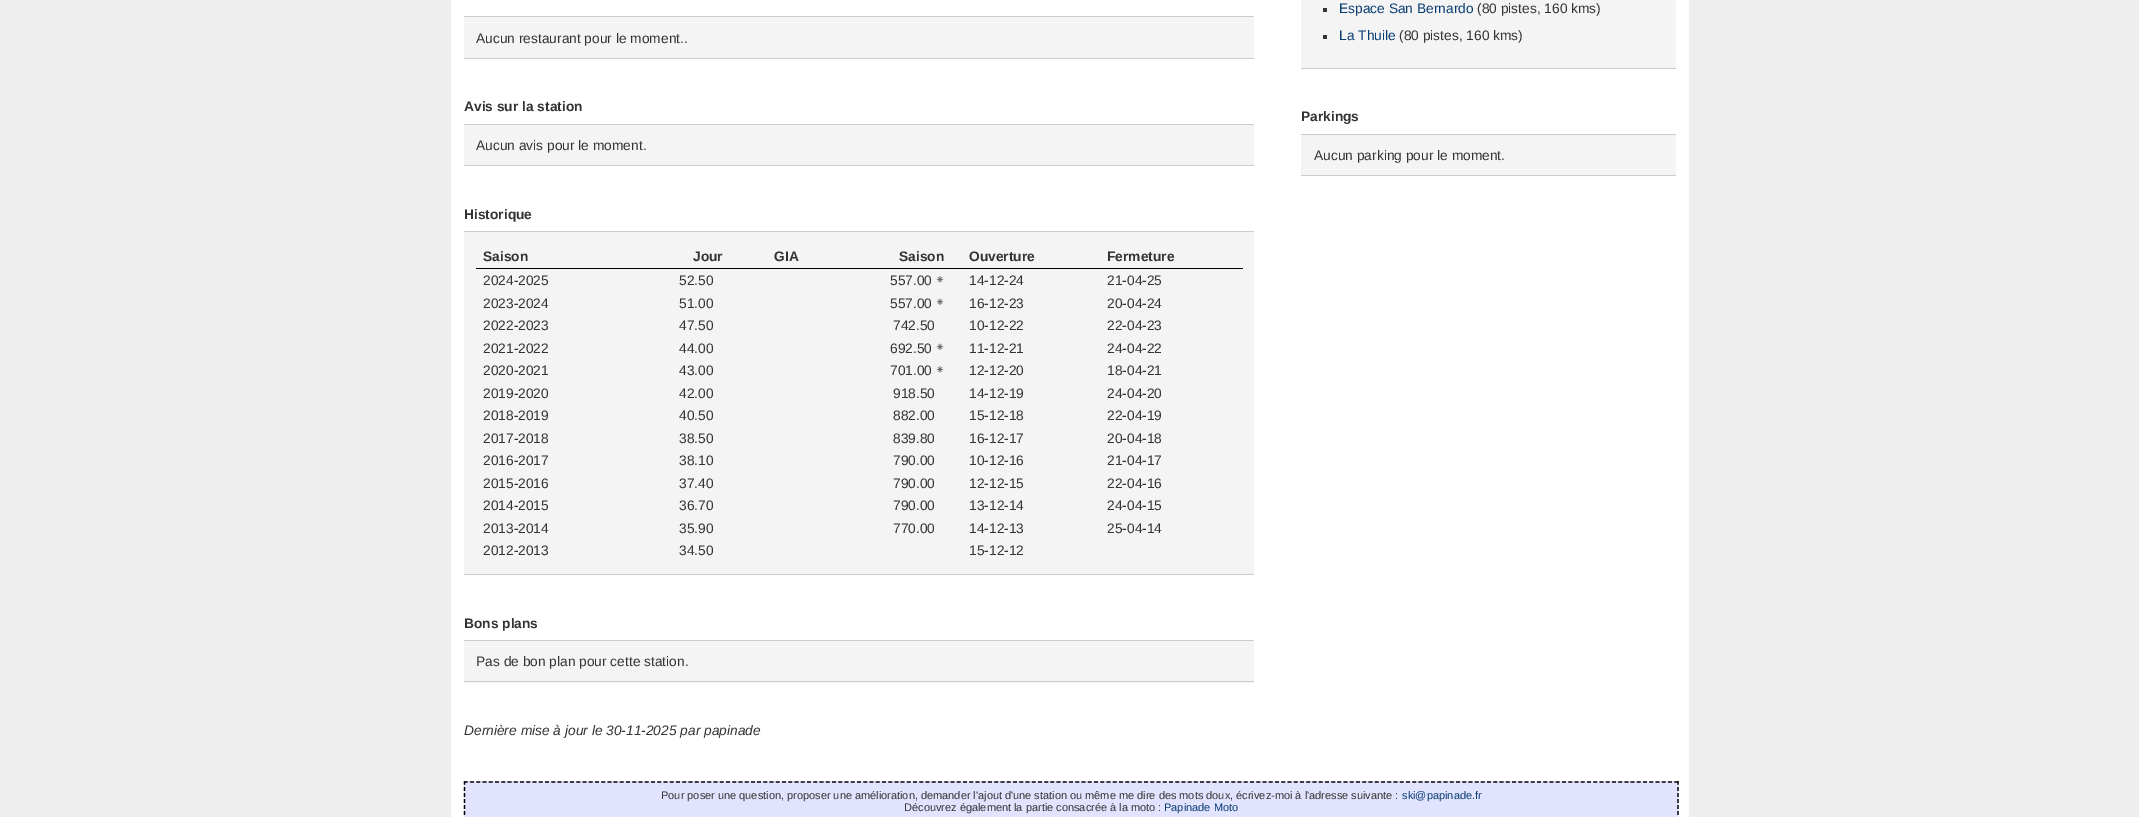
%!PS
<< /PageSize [2139 817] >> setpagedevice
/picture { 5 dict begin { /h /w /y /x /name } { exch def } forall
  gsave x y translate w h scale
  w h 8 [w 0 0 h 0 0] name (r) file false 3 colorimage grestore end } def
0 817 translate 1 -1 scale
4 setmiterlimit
0.933 setgray
0 0 2139 817 rectfill
1 setgray
451 0 1238 817 rectfill
0.957 setgray
464 17 790 41 rectfill
0.8 setgray
464 16 790 1 rectfill
464 58 790 1 rectfill
/LiberationSans-Regular [13.75 0 0 -13.75 0 0] selectfont
0.2 setgray
476 43 moveto (Aucun restaurant pour le moment..) show
/LiberationSans-Bold [13.75 0 0 -13.75 0 0] selectfont
464 111 moveto (Avis sur la station) show
0.957 setgray
464 125 790 40 rectfill
0.8 setgray
464 124 790 1 rectfill
464 165 790 1 rectfill
/LiberationSans-Regular [13.75 0 0 -13.75 0 0] selectfont
0.2 setgray
476 150 moveto (Aucun avis pour le moment.) show
/LiberationSans-Bold [13.75 0 0 -13.75 0 0] selectfont
464 219 moveto (Historique) show
0.957 setgray
464 232 790 342 rectfill
0.8 setgray
464 231 790 1 rectfill
464 574 790 1 rectfill
0.2 setgray
483 261 moveto (Saison) show
693 261 moveto (Jour) show
774 261 moveto (GIA) show
899 261 moveto (Saison) show
969 261 moveto (Ouverture) show
0 setgray
476 268 767 1 rectfill
0.2 setgray
1107 261 moveto (Fermeture) show
/LiberationSans-Regular [13.75 0 0 -13.75 0 0] selectfont
483 285 moveto (2024-2025) show
679 285 moveto (52.50) show
890 285 moveto (557.00) show
(img1.rgb) 936 276 8 7 picture
969 285 moveto (14-12-24) show
1107 285 moveto (21-04-25) show
483 308 moveto (2023-2024) show
679 308 moveto (51.00) show
890 308 moveto (557.00) show
(img2.rgb) 936 298 8 7 picture
969 308 moveto (16-12-23) show
1107 308 moveto (20-04-24) show
483 330 moveto (2022-2023) show
679 330 moveto (47.50) show
893 330 moveto (742.50) show
969 330 moveto (10-12-22) show
1107 330 moveto (22-04-23) show
483 353 moveto (2021-2022) show
679 353 moveto (44.00) show
890 353 moveto (692.50) show
(img2.rgb) 936 343 8 7 picture
969 353 moveto (11-12-21) show
1107 353 moveto (24-04-22) show
483 375 moveto (2020-2021) show
679 375 moveto (43.00) show
890 375 moveto (701.00) show
(img1.rgb) 936 366 8 7 picture
969 375 moveto (12-12-20) show
1107 375 moveto (18-04-21) show
483 398 moveto (2019-2020) show
679 398 moveto (42.00) show
893 398 moveto (918.50) show
969 398 moveto (14-12-19) show
1107 398 moveto (24-04-20) show
483 420 moveto (2018-2019) show
679 420 moveto (40.50) show
893 420 moveto (882.00) show
969 420 moveto (15-12-18) show
1107 420 moveto (22-04-19) show
483 443 moveto (2017-2018) show
679 443 moveto (38.50) show
893 443 moveto (839.80) show
969 443 moveto (16-12-17) show
1107 443 moveto (20-04-18) show
483 465 moveto (2016-2017) show
679 465 moveto (38.10) show
893 465 moveto (790.00) show
969 465 moveto (10-12-16) show
1107 465 moveto (21-04-17) show
483 488 moveto (2015-2016) show
679 488 moveto (37.40) show
893 488 moveto (790.00) show
969 488 moveto (12-12-15) show
1107 488 moveto (22-04-16) show
483 510 moveto (2014-2015) show
679 510 moveto (36.70) show
893 510 moveto (790.00) show
969 510 moveto (13-12-14) show
1107 510 moveto (24-04-15) show
483 533 moveto (2013-2014) show
679 533 moveto (35.90) show
893 533 moveto (770.00) show
969 533 moveto (14-12-13) show
1107 533 moveto (25-04-14) show
483 555 moveto (2012-2013) show
679 555 moveto (34.50) show
969 555 moveto (15-12-12) show
/LiberationSans-Bold [13.75 0 0 -13.75 0 0] selectfont
464 628 moveto (Bons plans) show
0.957 setgray
464 641 790 42 rectfill
0.8 setgray
464 640 790 1 rectfill
464 681 790 1 rectfill
/LiberationSans-Regular [13.75 0 0 -13.75 0 0] selectfont
0.2 setgray
476 666 moveto (Pas de bon plan pour cette station.) show
0.957 setgray
1301 0 375 68 rectfill
0.8 setgray
1301 68 375 1 rectfill
0.2 setgray
1323 8 4 4 rectfill
0.035 0.239 0.447 setrgbcolor
1339 13 moveto (Espace San Bernardo) show
0.2 setgray
1477 13 moveto (\(80 pistes, 160 kms\)) show
1323 35 4 4 rectfill
0.035 0.239 0.447 setrgbcolor
1339 40 moveto (La Thuile) show
0.2 setgray
1399 40 moveto (\(80 pistes, 160 kms\)) show
/LiberationSans-Bold [13.75 0 0 -13.75 0 0] selectfont
1301 121 moveto (Parkings) show
0.957 setgray
1301 135 375 40 rectfill
0.8 setgray
1301 134 375 1 rectfill
1301 175 375 1 rectfill
/LiberationSans-Regular [13.75 0 0 -13.75 0 0] selectfont
0.2 setgray
1314 160 moveto (Aucun parking pour le moment.) show
/LiberationSans-Italic [13.75 0 0 -13.75 0 0] selectfont
464 735 moveto (Dernière mise à jour le 30-11-2025 par papinade) show
0.886 0.894 1 setrgbcolor
464 781 1215 36 rectfill
0 setgray
1.2 setlinewidth
[3.75 2.49] 0 setdash
newpath 464 782 moveto 1679 782 lineto stroke
[3.75 2.29] 0 setdash
newpath 1678 781 moveto 1678 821 lineto stroke
newpath 464.5 781 moveto 464.5 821 lineto stroke
/LiberationSans-Regular [11 0 0 -11 0 0] selectfont
0.2 setgray
661 799 moveto (Pour poser une question, proposer une amélioration, demander l'ajout d'une station ou même me dire des mots doux, écrivez-moi à l'adresse suivante :) show
0.035 0.239 0.447 setrgbcolor
1402 799 moveto (ski@papinade.fr) show
0.2 setgray
904 811 moveto (Découvrez également la partie consacrée à la moto :) show
0.035 0.239 0.447 setrgbcolor
1164 811 moveto (Papinade Moto) show
showpage
